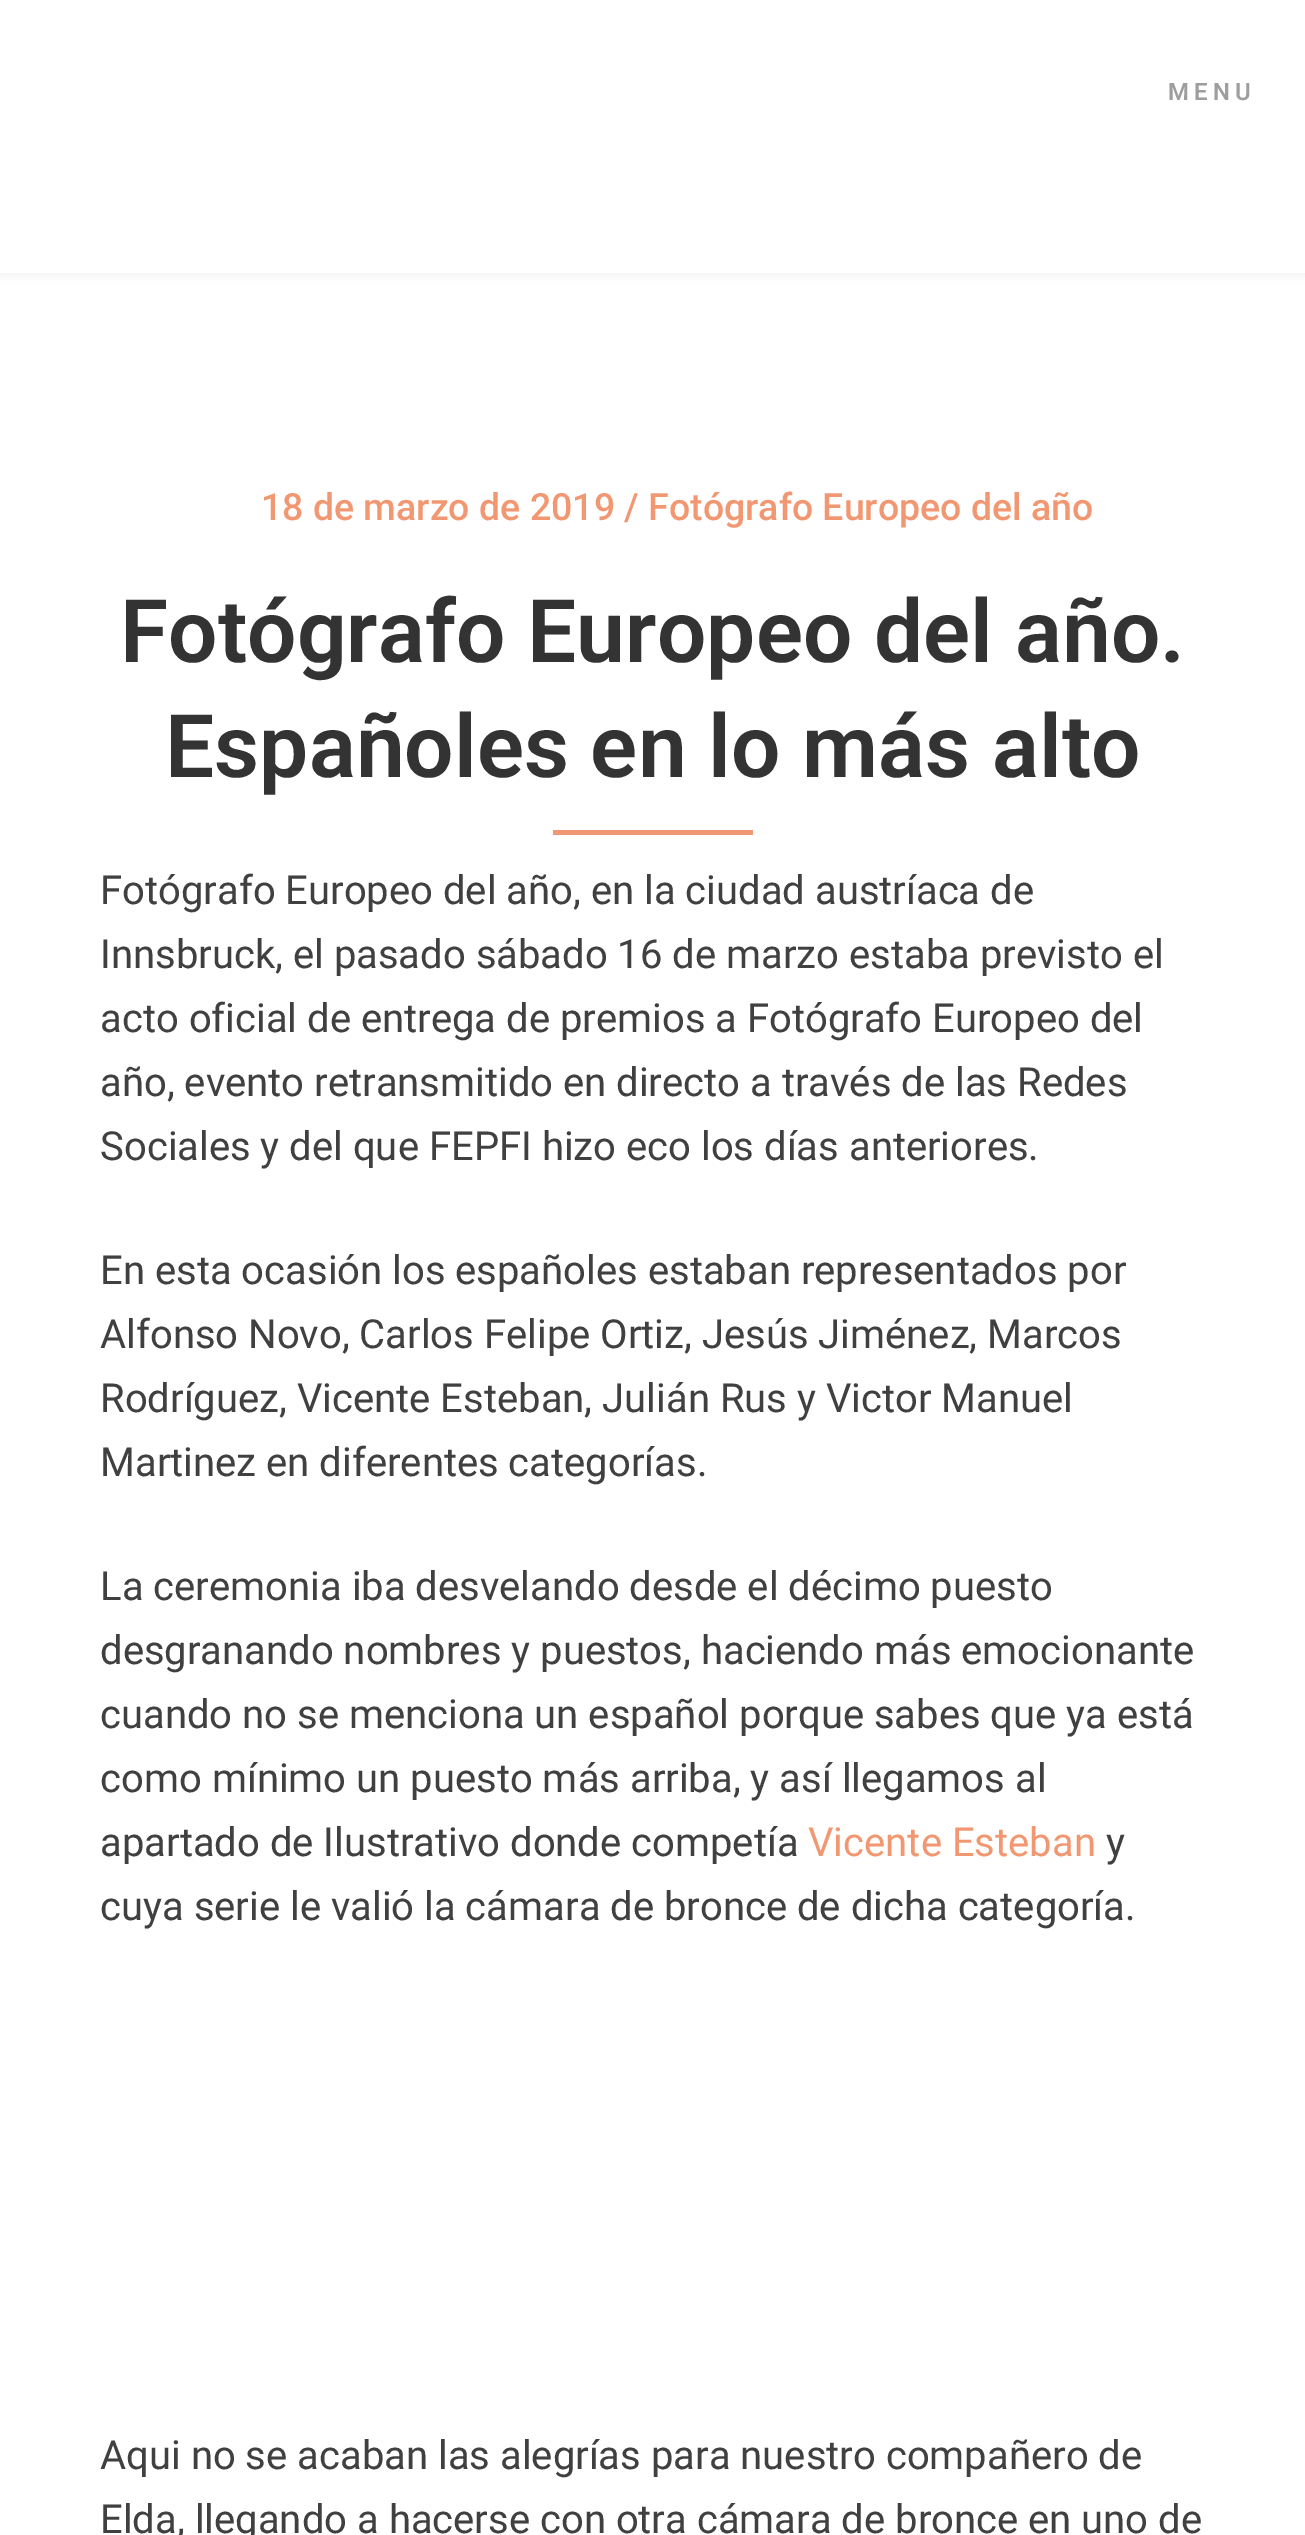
%!PS
<< /PageSize [1305 2535] /PageUsesTransparency true >> setpagedevice
/alpha { dup .setfillconstantalpha .setstrokeconstantalpha } def
/roundrect { 5 dict begin { /r /h /w /y /x } { exch def } forall
  x r add y moveto x w add y 2 copy h add r arct x w add y h add x 1 index r arct
  x y h add x y r arct x y 2 copy exch w add exch r arct closepath end } def
/shadow { 12 dict begin { /a /b /q /h /w /y /x } { exch def } forall gsave /was 0 def
  9 -2 -9 { dup b mul 4 div /e exch def 1 sub .425 mul 2.718 exch exp 1 add a .99 .min exch div /now exch def
    1 1 now sub 1 was sub div sub alpha /was now def
    w h .min e 2 mul add 0 gt { x e sub y e sub w e 2 mul add h e 2 mul add
      q e add b .6 mul add w h .min 2 div e add .min 0 .max roundrect fill } if } for grestore end } def
0 .pushpdf14devicefilter
0 2535 translate 1 -1 scale
4 setmiterlimit
1 setgray
0 0 1305 2535 rectfill
0.745 setgray
0 3 1305 272 0 4 0.2 shadow
1 setgray
0 0 1305 273 rectfill
/Roboto-SemiBold [24 0 0 -24 0 0] selectfont
0.62 setgray
1168 100 moveto 5 0 (MENU) ashow
/Roboto-Medium [37.5 0 0 -37.5 0 0] selectfont
0.945 0.592 0.447 setrgbcolor
261 520 moveto (18 de marzo de 2019 / Fotógrafo Europeo del año) show
/Roboto-SemiBold [87.5 0 0 -87.5 0 0] selectfont
0.2 setgray
120 662 moveto (Fotógrafo Europeo del año.) show
165 777 moveto (Españoles en lo más alto) show
0.945 0.592 0.447 setrgbcolor
553 830 200 5 rectfill
/Roboto-Regular [40 0 0 -40 0 0] selectfont
0.251 setgray
100 904 moveto (Fotógrafo Europeo del año, en la ciudad austríaca de) show
100 968 moveto (Innsbruck, el pasado sábado 16 de marzo estaba previsto el) show
100 1032 moveto (acto oficial de entrega de premios a Fotógrafo Europeo del) show
100 1096 moveto (año, evento retransmitido en directo a través de las Redes) show
100 1160 moveto (Sociales y del que FEPFI hizo eco los días anteriores.) show
100 1284 moveto (En esta ocasión los españoles estaban representados por) show
100 1348 moveto (Alfonso Novo, Carlos Felipe Ortiz, Jesús Jiménez, Marcos) show
100 1412 moveto (Rodríguez, Vicente Esteban, Julián Rus y Victor Manuel) show
100 1476 moveto (Martinez en diferentes categorías.) show
100 1600 moveto (La ceremonia iba desvelando desde el décimo puesto) show
100 1664 moveto (desgranando nombres y puestos, haciendo más emocionante) show
100 1728 moveto (cuando no se menciona un español porque sabes que ya está) show
100 1792 moveto (como mínimo un puesto más arriba, y así llegamos al) show
100 1856 moveto (apartado de Ilustrativo donde competía) show
0.945 0.592 0.447 setrgbcolor
808 1856 moveto (Vicente Esteban) show
0.251 setgray
1106 1856 moveto (y) show
100 1920 moveto (cuya serie le valió la cámara de bronce de dicha categoría.) show
100 2469 moveto (Aqui no se acaban las alegrías para nuestro compañero de) show
100 2533 moveto (Elda, llegando a hacerse con otra cámara de bronce en uno de) show
.poppdf14devicefilter showpage
